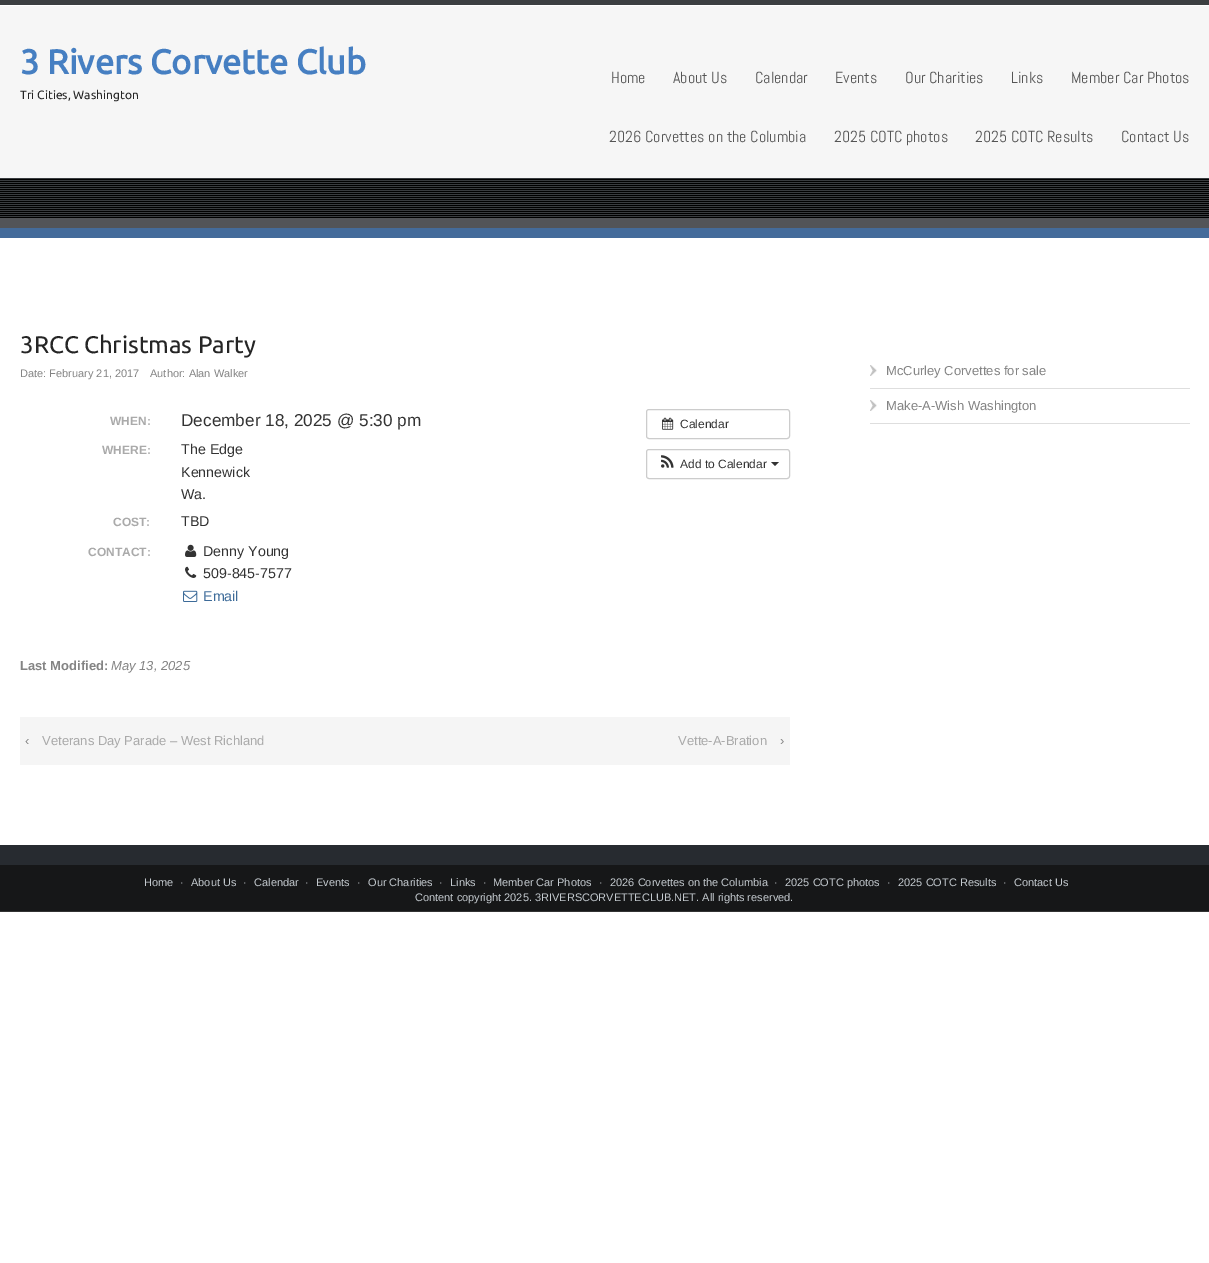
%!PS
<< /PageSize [1209 1263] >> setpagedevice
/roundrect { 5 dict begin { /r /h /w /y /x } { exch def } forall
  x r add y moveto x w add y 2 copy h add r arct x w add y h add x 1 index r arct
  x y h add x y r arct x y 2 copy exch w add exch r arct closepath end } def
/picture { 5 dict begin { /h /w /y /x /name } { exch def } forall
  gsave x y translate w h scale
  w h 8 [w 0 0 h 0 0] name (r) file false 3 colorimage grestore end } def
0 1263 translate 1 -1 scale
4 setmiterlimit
1 setgray
0 0 1209 1263 rectfill
0.235 0.247 0.255 setrgbcolor
0 0 1209 5 rectfill
0.965 setgray
0 6 1209 172 rectfill
/Ubuntu-Bold [34.25 0 0 -34.25 0 0] selectfont
0.275 0.498 0.761 setrgbcolor
20 74 moveto (3 Rivers Corvette Club) show
/Ubuntu-Regular [12 0 0 -12 0 0] selectfont
0.145 setgray
20 99 moveto (Tri Cities, Washington) show
/Abel-Regular [16 0 0 -16 0 0] selectfont
0.333 setgray
611 83 moveto (Home) show
673 83 moveto (About Us) show
755 83 moveto (Calendar) show
835 83 moveto (Events) show
905 83 moveto (Our Charities) show
1011 83 moveto (Links) show
1071 83 moveto (Member Car Photos) show
609 142 moveto (2026 Corvettes on the Columbia) show
834 142 moveto (2025 COTC photos) show
975 142 moveto (2025 COTC Results) show
1121 142 moveto (Contact Us) show
0.224 0.235 0.247 setrgbcolor
0 178 1209 39 rectfill
(img1.rgb) 0 179 1209 39 picture
0.267 0.42 0.604 setrgbcolor
0 228 1209 10 rectfill
0.322 0.329 0.345 setrgbcolor
0 218 1209 10 rectfill
/Ubuntu-Regular [24 0 0 -24 0 0] selectfont
0.145 setgray
20 353 moveto (3RCC Christmas Party) show
/LiberationSans-Regular [11 0 0 -11 0 0] selectfont
0.518 setgray
20 377 moveto (Date: February 21, 2017) show
150 377 moveto (Author: Alan Walker) show
/LiberationSans-Bold [12 0 0 -12 0 0] selectfont
0.667 setgray
110 425 moveto (WHEN:) show
/LiberationSans-Regular [17.2 0 0 -17.2 0 0] selectfont
0.2 setgray
181 426 moveto (December 18, 2025 @ 5:30 pm) show
/LiberationSans-Bold [12 0 0 -12 0 0] selectfont
0.667 setgray
102 454 moveto (WHERE:) show
/LiberationSans-Regular [14.25 0 0 -14.25 0 0] selectfont
0.2 setgray
181 454 moveto (The Edge) show
181 477 moveto (Kennewick) show
181 499 moveto (Wa.) show
/LiberationSans-Bold [12 0 0 -12 0 0] selectfont
0.667 setgray
113 526 moveto (COST:) show
/LiberationSans-Regular [14.25 0 0 -14.25 0 0] selectfont
0.2 setgray
181 526 moveto (TBD) show
/LiberationSans-Bold [12 0 0 -12 0 0] selectfont
0.667 setgray
88 556 moveto (CONTACT:) show
(img2.rgb) 185 544 12 13 picture
/LiberationSans-Regular [14.25 0 0 -14.25 0 0] selectfont
0.2 setgray
203 556 moveto (Denny Young) show
(img3.rgb) 185 566 12 12 picture
203 578 moveto (509-845-7577) show
(img4.rgb) 183 590 15 12 picture
0.239 0.42 0.6 setrgbcolor
203 601 moveto (Email) show
0.8 setgray
646.5 409.5 143 29 2.5 roundrect stroke
(img5.rgb) 662 417 12 13 picture
/LiberationSans-Regular [12 0 0 -12 0 0] selectfont
0.2 setgray
680 428 moveto (Calendar) show
0.8 setgray
646.5 449.5 143 29 2.5 roundrect stroke
(img6.rgb) 661 455 13 13 picture
0.2 setgray
680 468 moveto (Add to Calendar) show
newpath 771 462 moveto 779 462 lineto 775 466 lineto closepath fill
/LiberationSans-Bold [13 0 0 -13 0 0] selectfont
0.518 setgray
20 670 moveto (Last Modified:) show
/LiberationSans-Italic [13 0 0 -13 0 0] selectfont
111 670 moveto (May 13, 2025) show
0.961 setgray
20 717 770 48 rectfill
/LiberationSans-Regular [13 0 0 -13 0 0] selectfont
0.518 setgray
25 745 moveto (‹) show
0.667 setgray
42 745 moveto (Veterans Day Parade – West Richland) show
678 745 moveto (Vette-A-Bration) show
0.518 setgray
780 745 moveto (›) show
(img7.rgb) 870 365 7 11 picture
0.871 setgray
870 388 320 1 rectfill
0.518 setgray
886 375 moveto (McCurley Corvettes for sale) show
(img7.rgb) 870 400 7 11 picture
0.871 setgray
870 423 320 1 rectfill
0.518 setgray
886 410 moveto (Make-A-Wish Washington) show
0.153 0.169 0.188 setrgbcolor
0 845 1209 20 rectfill
0.086 0.09 0.094 setrgbcolor
0 865 1209 46 rectfill
0.2 setgray
0 911 1209 1 rectfill
/LiberationSans-Regular [11 0 0 -11 0 0] selectfont
0.769 0.792 0.812 setrgbcolor
144 886 moveto (Home) show
180 886 moveto (·) show
191 886 moveto (About Us) show
243 886 moveto (·) show
254 886 moveto (Calendar) show
305 886 moveto (·) show
316 886 moveto (Events) show
357 886 moveto (·) show
368 886 moveto (Our Charities) show
439 886 moveto (·) show
450 886 moveto (Links) show
483 886 moveto (·) show
493 886 moveto (Member Car Photos) show
599 886 moveto (·) show
610 886 moveto (2026 Corvettes on the Columbia) show
774 886 moveto (·) show
785 886 moveto (2025 COTC photos) show
887 886 moveto (·) show
898 886 moveto (2025 COTC Results) show
1003 886 moveto (·) show
1014 886 moveto (Contact Us) show
415 901 moveto (Content copyright 2025. 3RIVERSCORVETTECLUB.NET. All rights reserved.) show
showpage
